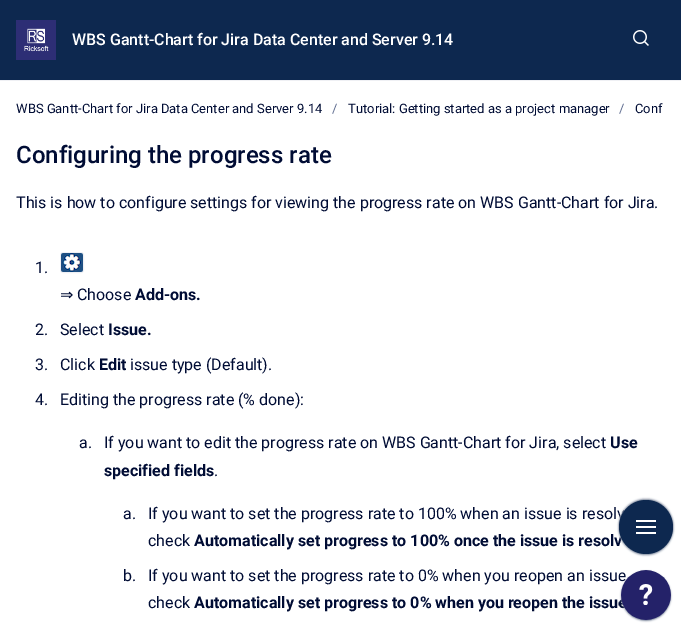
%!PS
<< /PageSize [681 640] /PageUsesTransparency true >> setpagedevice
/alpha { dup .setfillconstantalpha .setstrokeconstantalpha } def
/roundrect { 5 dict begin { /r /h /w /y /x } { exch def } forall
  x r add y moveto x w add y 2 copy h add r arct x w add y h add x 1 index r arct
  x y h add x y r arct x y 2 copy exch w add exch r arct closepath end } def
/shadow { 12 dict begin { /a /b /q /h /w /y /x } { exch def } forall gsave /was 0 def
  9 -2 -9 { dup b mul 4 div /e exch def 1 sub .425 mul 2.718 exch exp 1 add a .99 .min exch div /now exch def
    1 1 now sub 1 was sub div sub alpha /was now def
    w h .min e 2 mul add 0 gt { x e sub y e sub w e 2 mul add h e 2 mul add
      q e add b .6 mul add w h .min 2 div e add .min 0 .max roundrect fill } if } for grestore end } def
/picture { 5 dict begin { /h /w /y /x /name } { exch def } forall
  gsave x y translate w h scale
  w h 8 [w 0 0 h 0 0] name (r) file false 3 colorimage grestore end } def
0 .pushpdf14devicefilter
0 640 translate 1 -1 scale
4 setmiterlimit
1 setgray
0 0 681 640 rectfill
0.051 0.157 0.31 setrgbcolor
0 0 681 80 rectfill
0.937 0.941 0.957 setrgbcolor
0 80 681 1 rectfill
(img1.rgb) 16 20 40 40 picture
/Roboto-Medium [16 0 0 -16 0 0] selectfont
1 setgray
72 45 moveto (WBS Gantt-Chart for Jira Data Center and Server 9.14) show
(img2.rgb) 633 30 16 16 picture
/Roboto-Regular [13 0 0 -13 0 0] selectfont
0 0.047 0.204 setrgbcolor
16 113 moveto (WBS Gantt-Chart for Jira Data Center and Server 9.14) show
0.365 0.42 0.561 setrgbcolor
332 113 moveto (/) show
0 0.047 0.204 setrgbcolor
348 113 moveto (Tutorial: Getting started as a project manager) show
0.365 0.42 0.561 setrgbcolor
619 113 moveto (/) show
0 0.047 0.204 setrgbcolor
635 113 moveto (Conf) show
/Roboto-Medium [24 0 0 -24 0 0] selectfont
16 163 moveto (Configuring the progress rate) show
/Roboto-Regular [16 0 0 -16 0 0] selectfont
16 208 moveto (This is how to configure settings for viewing the progress rate on WBS Gantt-Chart for Jira.) show
35 273 moveto (1.) show
0.937 0.941 0.957 setrgbcolor
60.5 252.5 23 20 2.5 roundrect stroke
(img3.rgb) 61 253 22 19 picture
/DejaVuSans-Regular [16 0 0 -16 0 0] selectfont
0 0.047 0.204 setrgbcolor
60 300 moveto (⇒) show
/Roboto-Regular [16 0 0 -16 0 0] selectfont
77 300 moveto (Choose) show
/Roboto-Bold [16 0 0 -16 0 0] selectfont
135 300 moveto (Add-ons.) show
/Roboto-Regular [16 0 0 -16 0 0] selectfont
35 335 moveto (2.) show
60 335 moveto (Select) show
/Roboto-Bold [16 0 0 -16 0 0] selectfont
108 335 moveto (Issue.) show
/Roboto-Regular [16 0 0 -16 0 0] selectfont
35 370 moveto (3.) show
60 370 moveto (Click) show
/Roboto-Bold [16 0 0 -16 0 0] selectfont
99 370 moveto (Edit) show
/Roboto-Regular [16 0 0 -16 0 0] selectfont
130 370 moveto (issue type \(Default\).) show
35 405 moveto (4.) show
60 405 moveto (Editing the progress rate \(% done\):) show
79 448 moveto (a.) show
104 448 moveto (If you want to edit the progress rate on WBS Gantt-Chart for Jira, select) show
/Roboto-Bold [16 0 0 -16 0 0] selectfont
610 448 moveto (Use) show
104 476 moveto (specified fields) show
/Roboto-Regular [16 0 0 -16 0 0] selectfont
214 476 moveto (.) show
123 519 moveto (a.) show
148 519 moveto (If you want to set the progress rate to 100% when an issue is resolv) show
148 546 moveto (check) show
/Roboto-Bold [16 0 0 -16 0 0] selectfont
194 546 moveto (Automatically set progress to 100% once the issue is resolv) show
/Roboto-Regular [16 0 0 -16 0 0] selectfont
123 581 moveto (b.) show
148 581 moveto (If you want to set the progress rate to 0% when you reopen an issue) show
148 608 moveto (check) show
/Roboto-Bold [16 0 0 -16 0 0] selectfont
194 608 moveto (Automatically set progress to 0% when you reopen the issue) show
0.478 0.525 0.604 setrgbcolor
619 499 54 54 27 1 1 shadow
619 501 54 54 27 1 1 shadow
0.051 0.157 0.31 setrgbcolor
newpath 646 527 27 0 360 arc closepath fill
1 setgray
636 520 20 2 rectfill
636 526 20 2 rectfill
636 532 20 2 rectfill
(img4.rgb) 619 569 54 54 picture
.poppdf14devicefilter showpage
